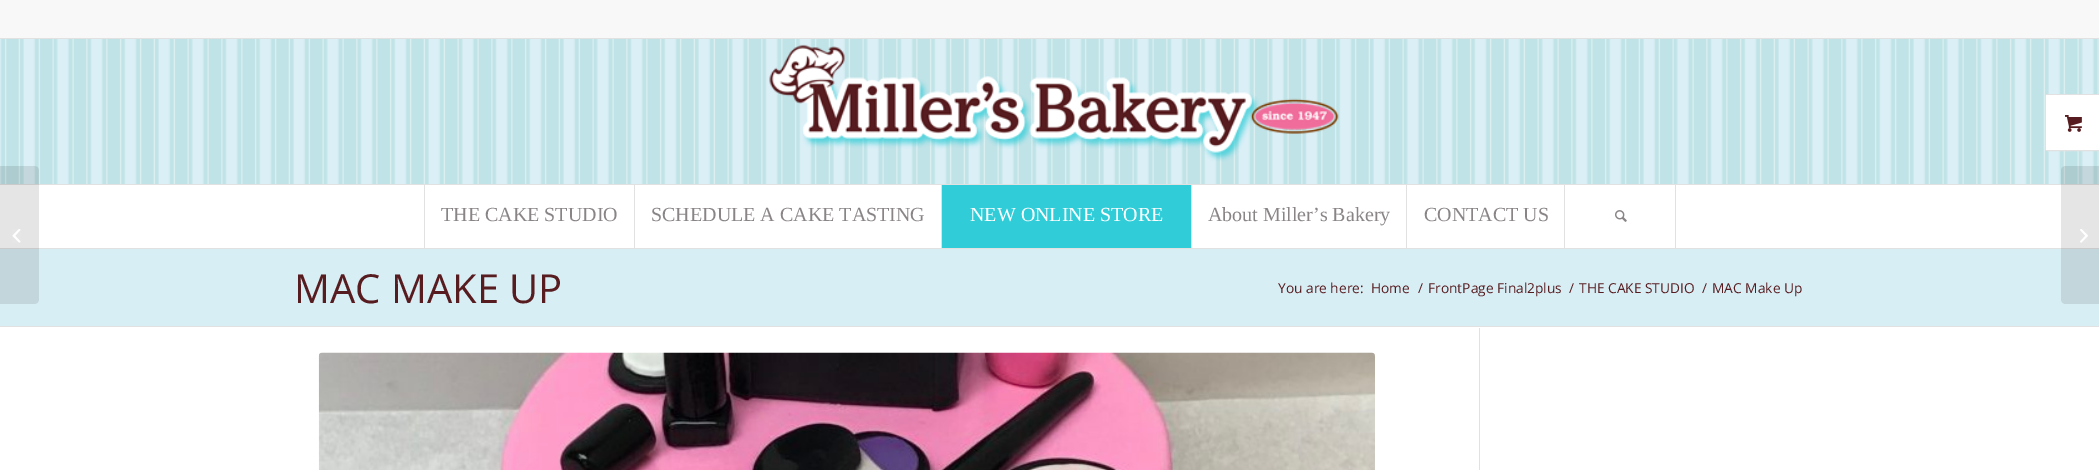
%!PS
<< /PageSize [2099 470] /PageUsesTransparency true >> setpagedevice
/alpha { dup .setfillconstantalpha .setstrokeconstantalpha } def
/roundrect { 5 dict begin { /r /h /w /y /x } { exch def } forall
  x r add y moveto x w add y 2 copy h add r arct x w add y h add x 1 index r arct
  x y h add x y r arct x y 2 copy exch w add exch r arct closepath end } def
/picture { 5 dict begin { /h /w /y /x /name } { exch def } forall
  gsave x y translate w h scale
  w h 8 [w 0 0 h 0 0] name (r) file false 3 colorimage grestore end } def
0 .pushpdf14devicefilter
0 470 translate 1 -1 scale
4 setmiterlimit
1 setgray
0 0 2099 470 rectfill
(img2.rgb) 0 39 2099 145 picture
0.882 setgray
0 248 2099 1 rectfill
0 184 2099 1 rectfill
0.847 0.933 0.961 setrgbcolor
0 249 2099 77 rectfill
0.1 alpha
0 setgray
newpath 0 166 moveto 34 166 lineto 37 166 39 168 39 171 curveto 39 299 lineto 39 302 37 304 34 304 curveto 0 304 lineto closepath fill
1 alpha
(img1.rgb) 12 229 9 14 picture
0.973 setgray
0 0 2099 38 rectfill
0.882 setgray
0 38 2099 1 rectfill
(img3.rgb) 769 44 570 118 picture
2045.5 94.5 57 56 2 roundrect stroke
1 setgray
2046 95 53 55 rectfill
(img4.rgb) 2065 115 17 17 picture
0.882 setgray
424 185 1 63 rectfill
/LiberationSerif-Regular [20 0 0 -20 0 0] selectfont
0.537 0.518 0.522 setrgbcolor
441 221 moveto (THE CAKE STUDIO) show
0.882 setgray
634 185 1 63 rectfill
0.537 0.518 0.522 setrgbcolor
651 221 moveto (SCHEDULE A CAKE TASTING) show
0.188 0.804 0.847 setrgbcolor
942 185 249 63 rectfill
0.882 setgray
941 185 1 63 rectfill
1 setgray
970 221 moveto (NEW ONLINE STORE) show
0.882 setgray
1191 185 1 63 rectfill
0.537 0.518 0.522 setrgbcolor
1208 221 moveto (About Miller’s Bakery) show
0.882 setgray
1406 185 1 63 rectfill
0.537 0.518 0.522 setrgbcolor
1424 221 moveto (CONTACT US) show
0.882 setgray
1675 185 1 63 rectfill
1564 185 1 63 rectfill
(img5.rgb) 1615 210 12 12 picture
0.1 alpha
0 setgray
newpath 2066 166 moveto 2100 166 lineto 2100 304 lineto 2066 304 lineto 2063 304 2061 302 2061 299 curveto 2061 171 lineto 2061 168 2063 166 2066 166 curveto closepath fill
1 alpha
(img6.rgb) 2080 229 8 14 picture
/OpenSans-Regular [40 0 0 -40 0 0] selectfont
0.341 0.11 0.122 setrgbcolor
294 303 moveto (MAC MAKE UP) show
/OpenSans-Regular [13.75 0 0 -13.75 0 0] selectfont
1278 293 moveto (You are here:) show
1371 293 moveto (Home) show
1418 293 moveto (/) show
1428 293 moveto (FrontPage Final2plus) show
1569 293 moveto (/) show
1579 293 moveto (THE CAKE STUDIO) show
1702 293 moveto (/) show
1712 293 moveto (MAC Make Up) show
0.882 setgray
0 326 2099 1 rectfill
1479 328 1 142 rectfill
(img7.rgb) 318 352 1057 118 picture
.poppdf14devicefilter showpage
